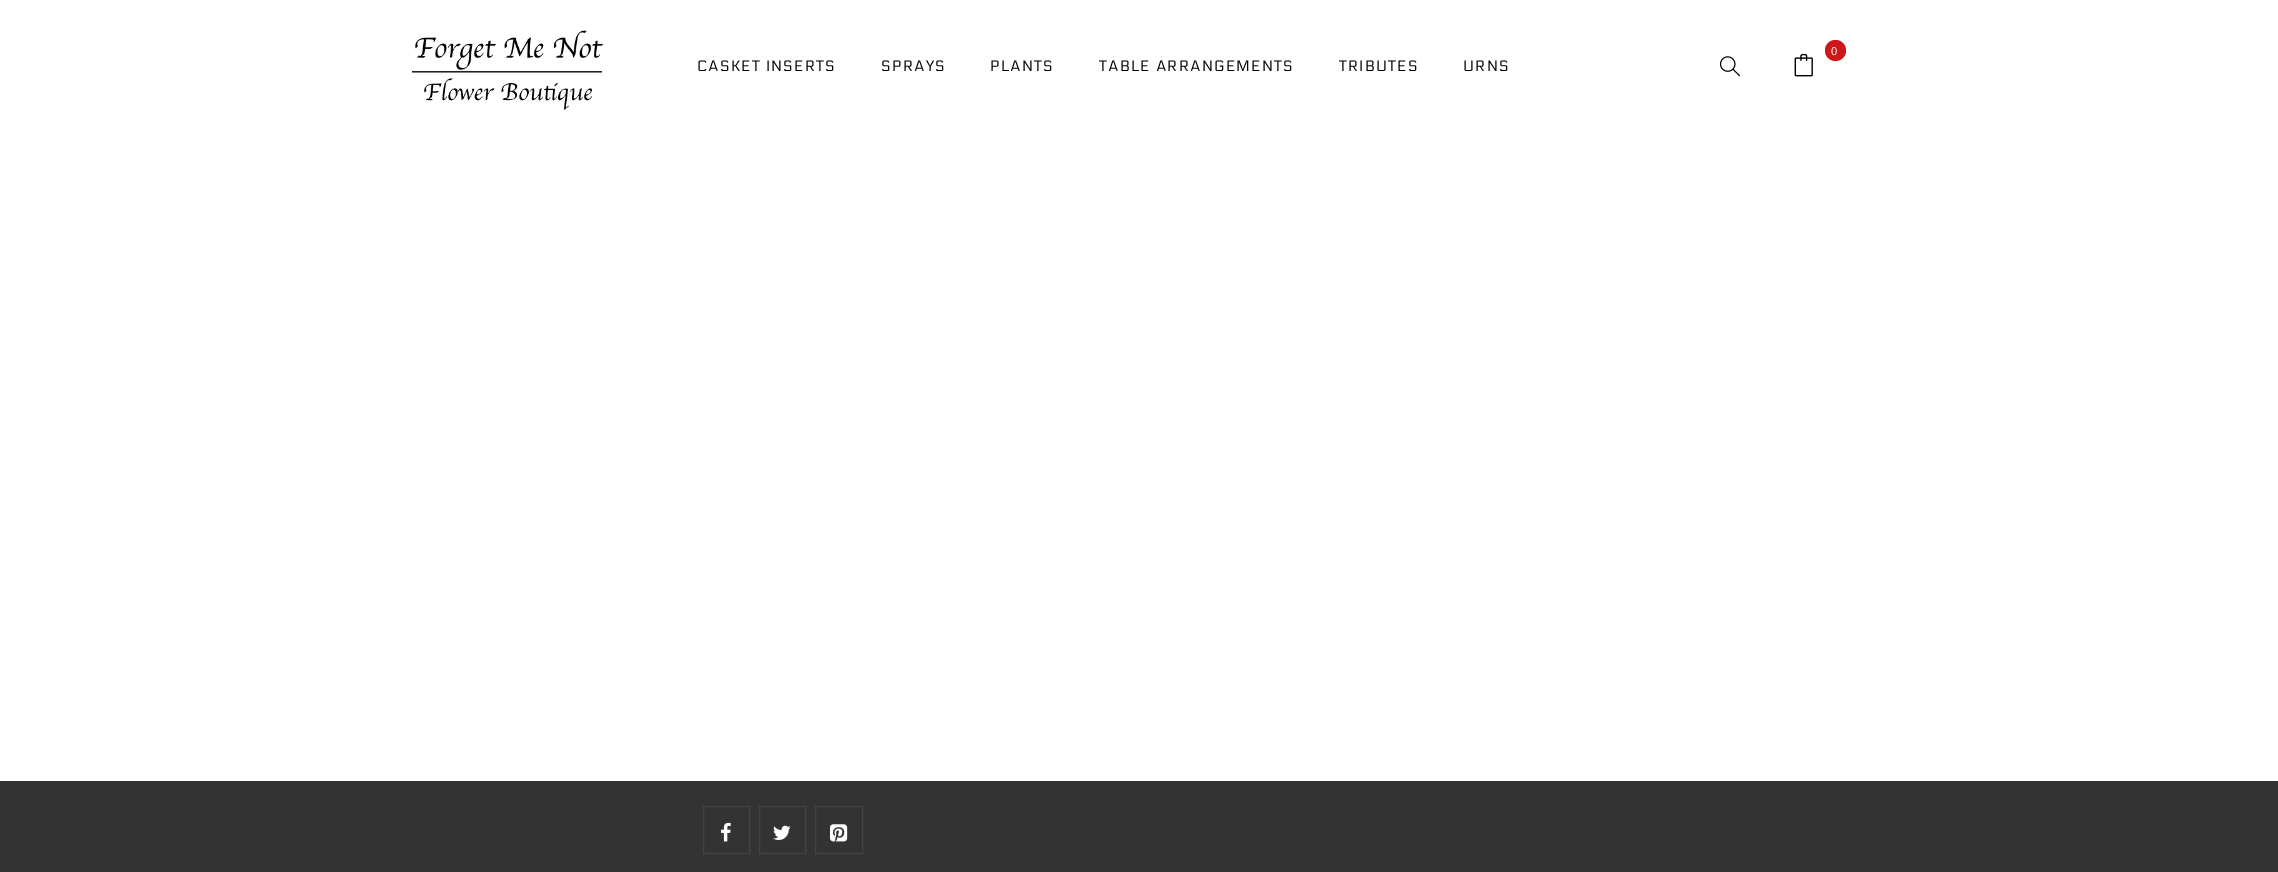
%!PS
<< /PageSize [2278 872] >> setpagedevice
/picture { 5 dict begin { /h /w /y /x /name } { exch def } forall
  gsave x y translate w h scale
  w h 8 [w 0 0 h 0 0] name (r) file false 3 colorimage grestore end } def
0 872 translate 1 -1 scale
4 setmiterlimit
1 setgray
0 0 2278 872 rectfill
(img1.rgb) 412 30 192 80 picture
0.804 0.09 0.098 setrgbcolor
newpath 1835.5 50.5 10.5 0 360 arc closepath fill
/OpenSans-Regular [11 0 0 -11 0 0] selectfont
1 setgray
1831 55 moveto 1 0 (0) ashow
(img2.rgb) 1794 53 19 24 picture
(img3.rgb) 1719 56 21 21 picture
/Electrolize-Regular [15 0 0 -15 0 0] selectfont
0 setgray
697 71 moveto 1.25 0 (CASKET INSERTS) ashow
881 71 moveto 1.25 0 (SPRAYS) ashow
990 71 moveto 1.25 0 (PLANTS) ashow
1099 71 moveto 1.25 0 (TABLE ARRANGEMENTS) ashow
1339 71 moveto 1.25 0 (TRIBUTES) ashow
1463 71 moveto 1.25 0 (URNS) ashow
0.2 setgray
0 781 2278 91 rectfill
0.267 setgray
703.5 806.5 46 47 rectstroke
(img4.rgb) 721 822 10 20 picture
759.5 806.5 46 47 rectstroke
(img5.rgb) 773 825 18 15 picture
815.5 806.5 47 47 rectstroke
(img6.rgb) 830 824 18 18 picture
showpage
